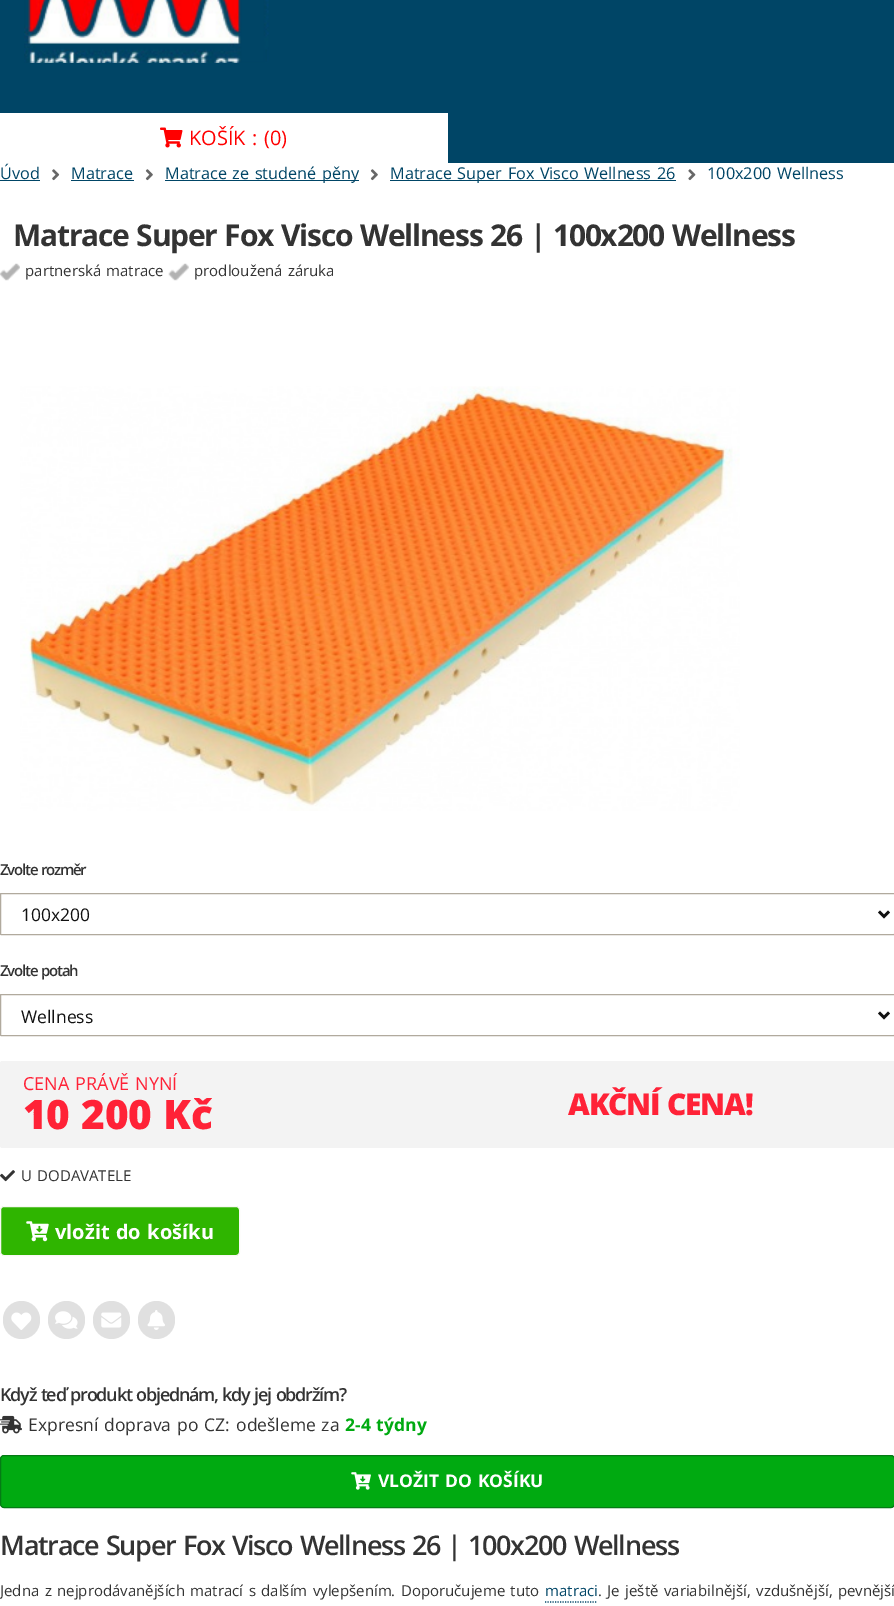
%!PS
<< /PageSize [894 1606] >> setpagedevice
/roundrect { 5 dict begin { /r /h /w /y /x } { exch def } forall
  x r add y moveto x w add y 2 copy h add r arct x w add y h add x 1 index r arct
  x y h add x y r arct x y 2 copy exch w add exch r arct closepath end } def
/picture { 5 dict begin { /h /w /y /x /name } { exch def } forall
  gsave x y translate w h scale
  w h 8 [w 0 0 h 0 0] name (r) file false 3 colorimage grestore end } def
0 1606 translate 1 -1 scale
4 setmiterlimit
0 0.271 0.4 setrgbcolor
0 0 894 1606 rectfill
(img1.rgb) 24 0 245 63 picture
1 setgray
0 113 448 50 rectfill
(img2.rgb) 160 127 23 21 picture
/OpenSans-Regular [20 0 0 -20 0 0] selectfont
1 0 0 setrgbcolor
189 145 moveto 1.25 0 32 (KOŠÍK : \(0\)) widthshow
1 setgray
0 163 894 1443 rectfill
/OpenSans-Regular [16.25 0 0 -16.25 0 0] selectfont
0 0.271 0.4 setrgbcolor
0 179 moveto (Úvod) show
0 180 40 1 rectfill
(img3.rgb) 52 169 8 12 picture
71 179 moveto (Matrace) show
71 180 63 1 rectfill
(img4.rgb) 145 169 8 12 picture
165 180 194 1 rectfill
165 179 moveto 1.25 0 32 (Matrace ze studené pěny) widthshow
(img4.rgb) 370 169 8 12 picture
390 180 286 1 rectfill
390 179 moveto 1.25 0 32 (Matrace Super Fox Visco Wellness 26) widthshow
(img5.rgb) 688 169 8 12 picture
707 179 moveto 1.25 0 32 (100x200 Wellness) widthshow
/OpenSans-Bold [30 0 0 -30 0 0] selectfont
0.2 setgray
13 246 moveto 1.25 0 32 -1.25 0 (Matrace Super Fox Visco Wellness 26 | 100x200 Wellness) awidthshow
(img6.rgb) 0 263 20 18 picture
/OpenSans-Regular [15 0 0 -15 0 0] selectfont
25 276 moveto 1.25 0 32 (partnerská matrace) widthshow
(img7.rgb) 168 263 21 18 picture
194 276 moveto 1.25 0 32 (prodloužená záruka) widthshow
(img8.rgb) 20 386 720 425 picture
/OpenSans-SemiBold [15 0 0 -15 0 0] selectfont
0 875 moveto 1.25 0 32 -1.25 0 (Zvolte rozměr) awidthshow
0.694 0.667 0.62 setrgbcolor
0.5 893.5 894 41 0.5 roundrect stroke
0.067 setgray
2.5 setlinewidth
newpath 879 911.5 moveto 884 916.5 lineto 889 911.5 lineto stroke
/OpenSans-Regular [17.5 0 0 -17.5 0 0] selectfont
21 921 moveto (100x200) show
/OpenSans-SemiBold [15 0 0 -15 0 0] selectfont
0.2 setgray
0 976 moveto 1.25 0 32 -1.25 0 (Zvolte potah) awidthshow
0.694 0.667 0.62 setrgbcolor
1 setlinewidth
0.5 994.5 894 41 0.5 roundrect stroke
0.067 setgray
2.5 setlinewidth
newpath 879 1012.5 moveto 884 1017.5 lineto 889 1012.5 lineto stroke
/OpenSans-Regular [17.5 0 0 -17.5 0 0] selectfont
21 1023 moveto (Wellness) show
0.953 setgray
0 1061 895 87 2.5 roundrect fill
/OpenSans-Regular [18 0 0 -18 0 0] selectfont
1 0.133 0.216 setrgbcolor
23 1090 moveto 1.25 0 32 (CENA PRÁVĚ NYNÍ) widthshow
/OpenSans-ExtraBold [40.5 0 0 -40.5 0 0] selectfont
23 1129 moveto 2 0 32 -0.5 0 (10 200 Kč) awidthshow
/OpenSans-ExtraBold [30 0 0 -30 0 0] selectfont
568 1115 moveto 1.25 0 32 -1.25 0 (AKČNÍ CENA!) awidthshow
(img9.rgb) 0 1170 15 12 picture
/OpenSans-Regular [15 0 0 -15 0 0] selectfont
0.2 setgray
21 1181 moveto 1.25 0 32 (U DODAVATELE) widthshow
0.184 0.71 0 setrgbcolor
0.5 1206.5 239 49 3.5 roundrect gsave fill grestore
0.976 0.973 0.961 setrgbcolor
1 setlinewidth
stroke
(img10.rgb) 26 1221 23 21 picture
/OpenSans-Bold [20 0 0 -20 0 0] selectfont
1 setgray
55 1239 moveto 1.25 0 32 (vložit do košíku) widthshow
0.878 setgray
3 1301 37 38 18.5 roundrect fill
(img11.rgb) 11 1312 21 18 picture
48 1301 37 38 18.5 roundrect fill
(img12.rgb) 55 1311 23 18 picture
93 1301 37 38 18.5 roundrect fill
(img13.rgb) 101 1312 21 16 picture
138 1301 37 38 18.5 roundrect fill
(img14.rgb) 147 1310 18 20 picture
/OpenSans-SemiBold [18 0 0 -18 0 0] selectfont
0.2 setgray
0 1401 moveto 1.25 0 32 -1.25 0 (Když teď produkt objednám, kdy jej obdržím?) awidthshow
(img15.rgb) 0 1415 22 19 picture
/OpenSans-Regular [17.5 0 0 -17.5 0 0] selectfont
28 1431 moveto 1.25 0 32 (Expresní doprava po CZ:) widthshow
236 1431 moveto 1.25 0 32 (odešleme za) widthshow
/OpenSans-Bold [17.5 0 0 -17.5 0 0] selectfont
0 0.667 0.067 setrgbcolor
345 1431 moveto 1.25 0 32 (2-4 týdny) widthshow
0.5 1455.5 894 52 3.5 roundrect gsave fill grestore
0.02 0.482 0.082 setrgbcolor
stroke
(img16.rgb) 351 1472 20 18 picture
1 setgray
378 1487 moveto 1.25 0 32 (VLOŽIT DO KOŠÍKU) widthshow
/OpenSans-SemiBold [27 0 0 -27 0 0] selectfont
0.2 setgray
0 1555 moveto 1.25 0 32 -1.25 0 (Matrace Super Fox Visco Wellness 26 | 100x200 Wellness) awidthshow
/OpenSans-Regular [15 0 0 -15 0 0] selectfont
0 1596 moveto 1.5 0 32 (Jedna z nejprodávanějších matrací s dalším vylepšením. Doporučujeme tuto) widthshow
0 0.271 0.4 setrgbcolor
545 1596 moveto (matraci) show
1.2 setlinewidth
[1.25 1.25] 0 setdash
newpath 545 1602 moveto 597.5 1602 lineto stroke
0.2 setgray
598 1596 moveto 1.5 0 32 (. Je ještě variabilnější, vzdušnější, pevnější) widthshow
showpage
